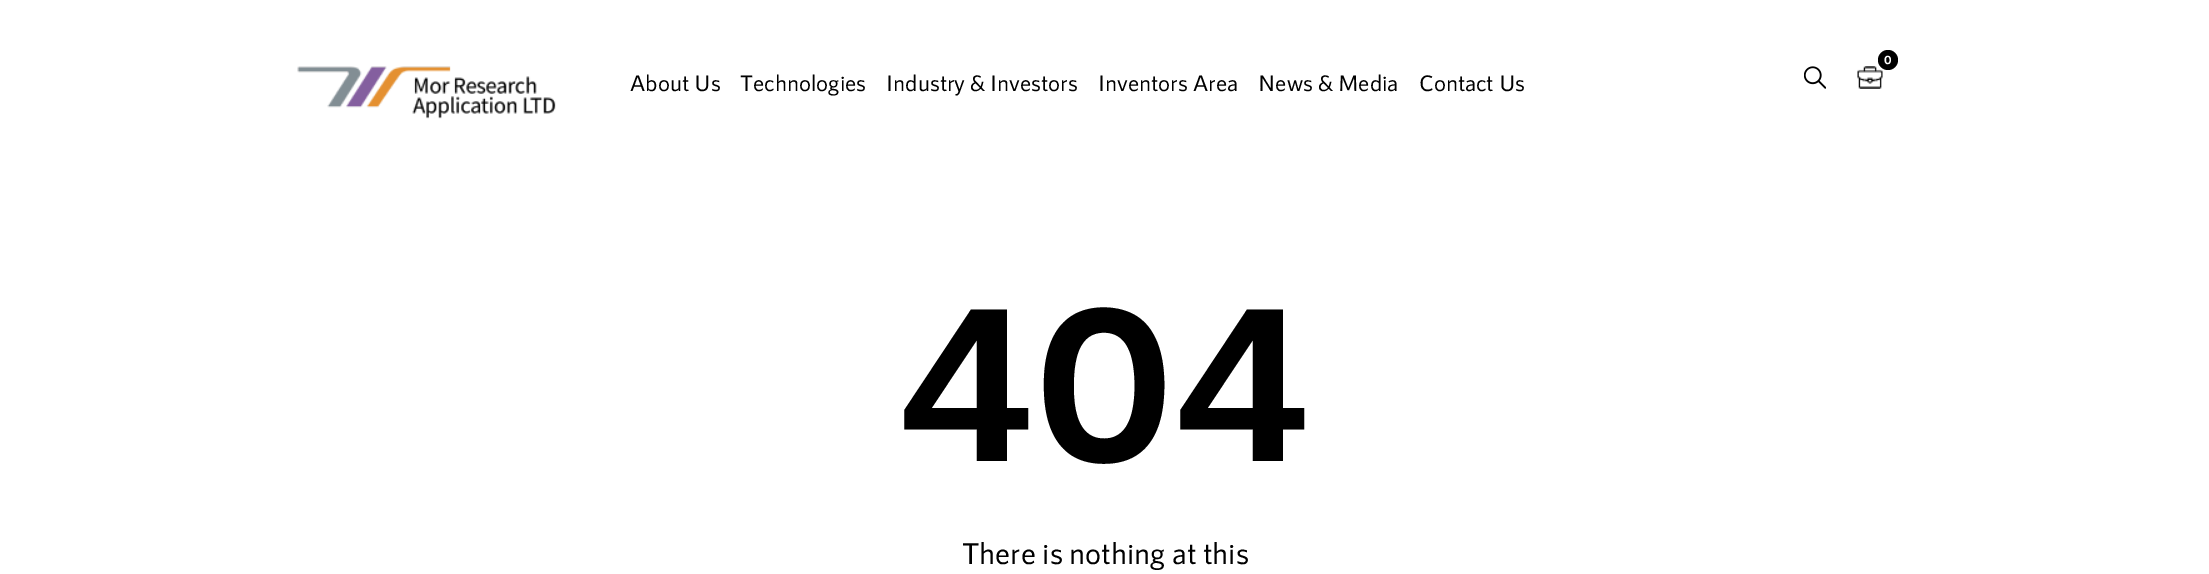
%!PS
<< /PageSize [2209 574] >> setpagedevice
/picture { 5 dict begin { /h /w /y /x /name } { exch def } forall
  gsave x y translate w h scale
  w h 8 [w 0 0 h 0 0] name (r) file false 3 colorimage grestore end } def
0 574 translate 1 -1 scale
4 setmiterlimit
1 setgray
0 0 2209 574 rectfill
(img1.rgb) 1857 66 26 23 picture
0 setgray
newpath 1888 60 10 0 360 arc closepath fill
/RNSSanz-Bold [12 0 0 -12 0 0] selectfont
1 setgray
1884 64 moveto (0) show
(img2.rgb) 1804 66 22 23 picture
(img3.rgb) 297 66 259 53 picture
/RNSSanz-Medium [22.5 0 0 -22.5 0 0] selectfont
0 setgray
630 91 moveto (About Us) show
740 91 moveto (Technologies) show
886 91 moveto (Industry & Investors) show
1098 91 moveto (Inventors Area) show
1258 91 moveto (News & Media) show
1419 91 moveto (Contact Us) show
/RNSSanz-Bold [222 0 0 -222 0 0] selectfont
899 461 moveto (404) show
/RNSSanz-Medium [30 0 0 -30 0 0] selectfont
962 564 moveto (There is nothing at this) show
showpage
